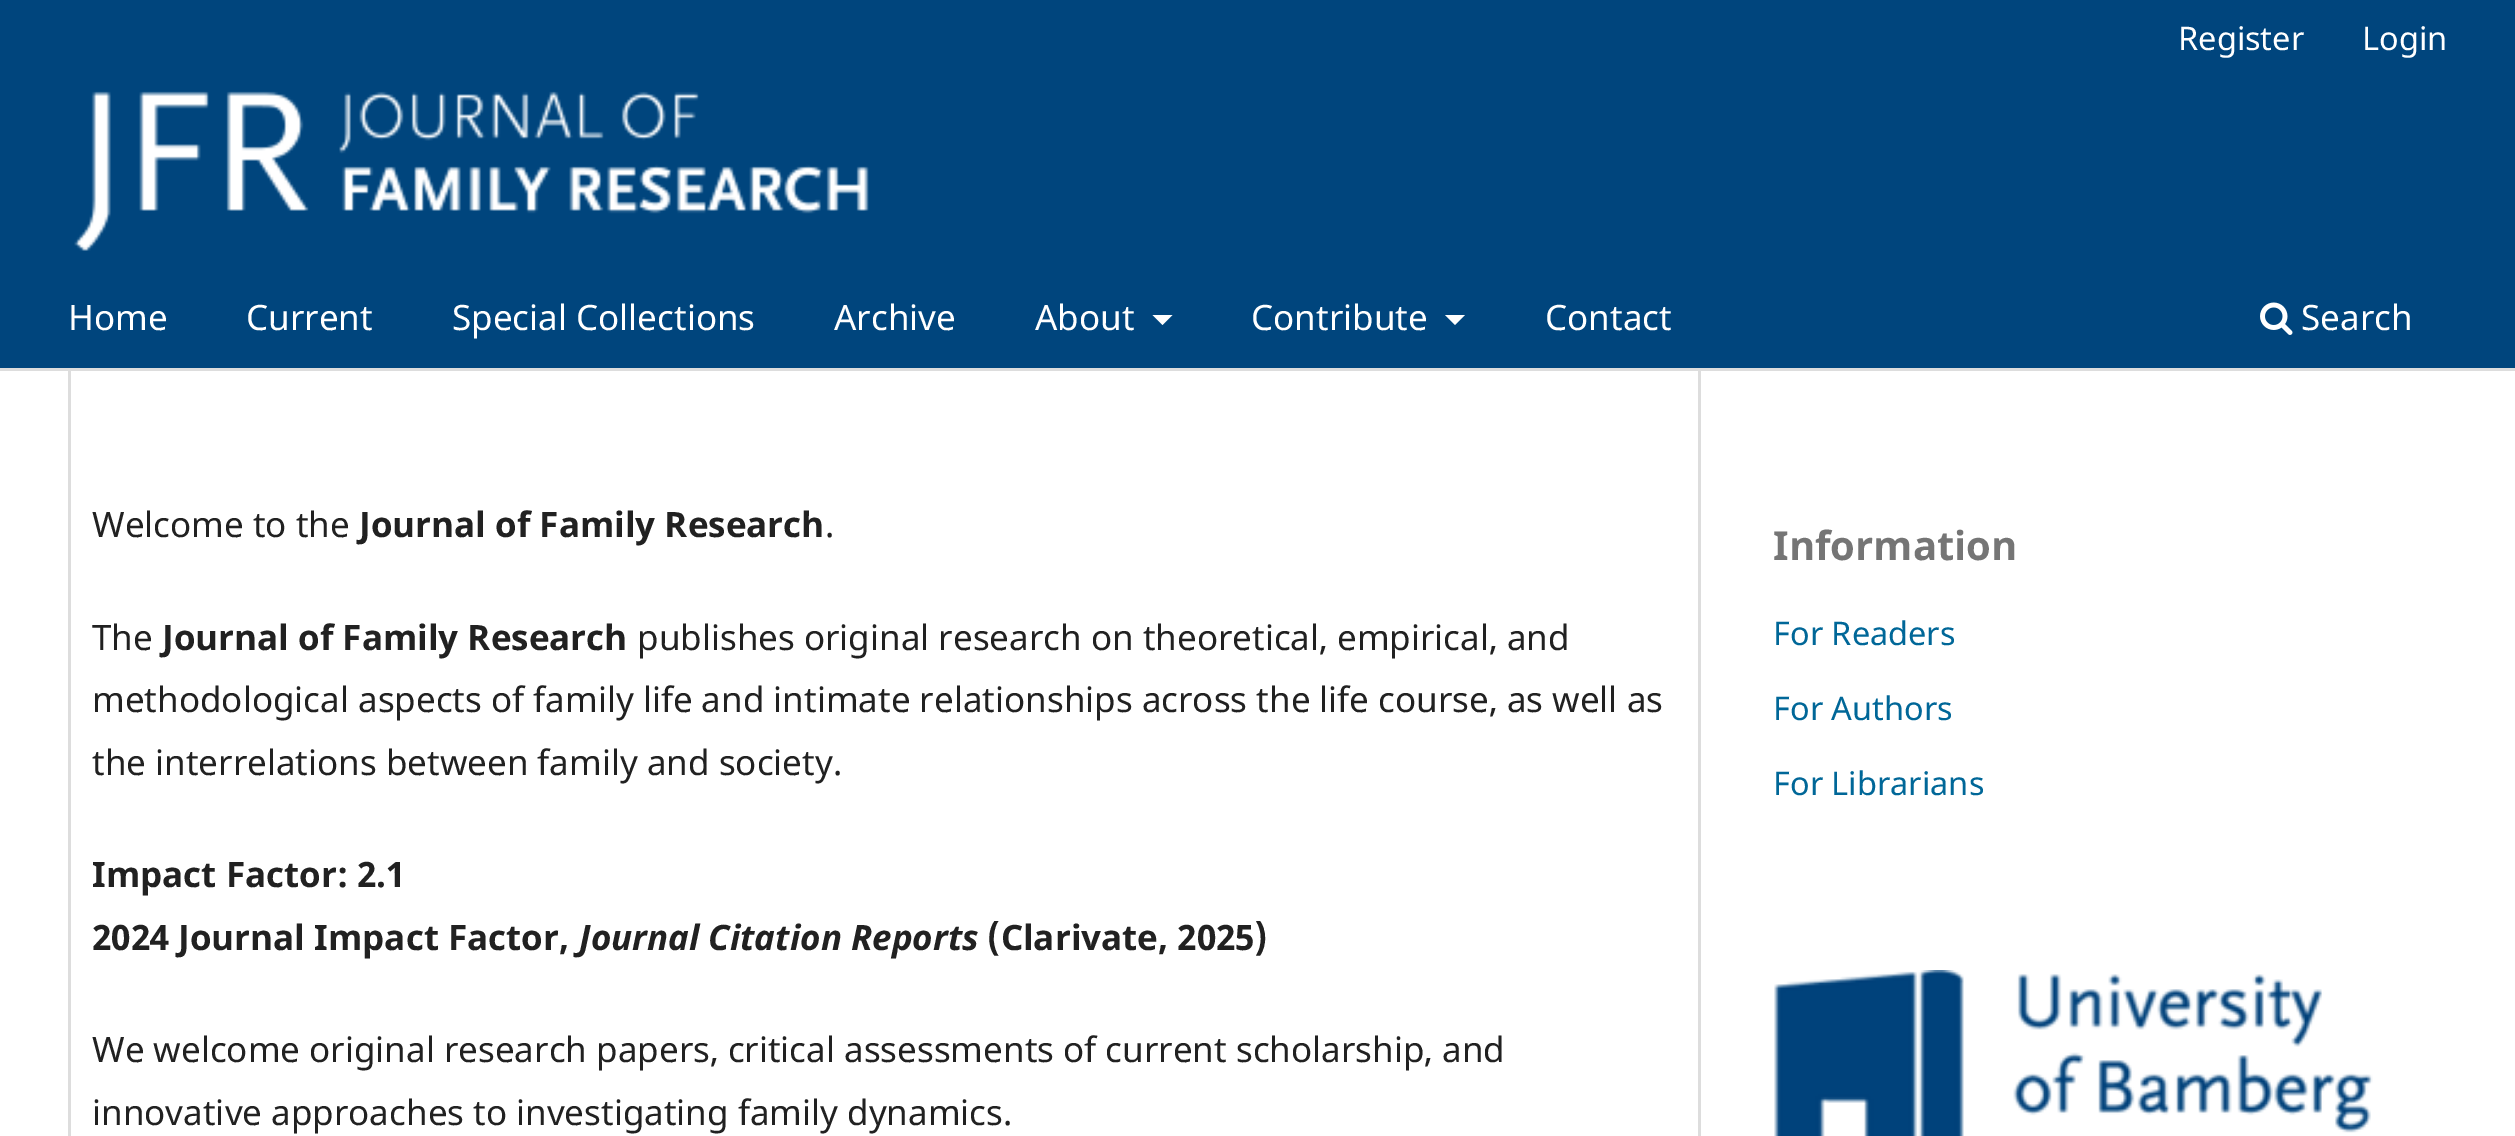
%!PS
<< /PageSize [2515 1136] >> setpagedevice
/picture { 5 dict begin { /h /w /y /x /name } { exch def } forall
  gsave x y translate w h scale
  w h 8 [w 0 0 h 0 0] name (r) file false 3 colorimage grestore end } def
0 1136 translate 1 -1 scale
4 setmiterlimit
1 setgray
0 0 2515 1136 rectfill
0 0.271 0.49 setrgbcolor
0 0 2515 368 rectfill
0.867 setgray
0 368 2515 3 rectfill
/NotoSans-Regular [32.5 0 0 -32.5 0 0] selectfont
1 setgray
2178 50 moveto (Register) show
2362 50 moveto (Login) show
/NotoSans-Regular [35 0 0 -35 0 0] selectfont
68 330 moveto (Home) show
246 330 moveto (Current) show
452 330 moveto (Special Collections) show
834 330 moveto (Archive) show
1035 330 moveto (About) show
newpath 1152.5 315 moveto 1172.5 315 lineto 1162.5 325 lineto closepath fill
1251 330 moveto (Contribute) show
newpath 1445 315 moveto 1465 315 lineto 1455 325 lineto closepath fill
1545 330 moveto (Contact) show
(img1.rgb) 2260 302 33 33 picture
2301 330 moveto (Search) show
(img2.rgb) 74 91 795 160 picture
0.867 setgray
68 370 3 766 rectfill
0.129 setgray
92 537 moveto (Welcome to the) show
/NotoSans-Bold [35 0 0 -35 0 0] selectfont
359 537 moveto (Journal of Family Research) show
/NotoSans-Regular [35 0 0 -35 0 0] selectfont
825 537 moveto (.) show
92 650 moveto (The) show
/NotoSans-Bold [35 0 0 -35 0 0] selectfont
162 650 moveto (Journal of Family Research) show
/NotoSans-Regular [35 0 0 -35 0 0] selectfont
637 650 moveto (publishes original research on theoretical, empirical, and) show
92 712 moveto (methodological aspects of family life and intimate relationships across the life course, as well as) show
92 775 moveto (the interrelations between family and society.) show
/NotoSans-Bold [35 0 0 -35 0 0] selectfont
92 887 moveto (Impact Factor: 2.1) show
92 950 moveto (2024 Journal Impact Factor,) show
/NotoSans-BoldItalic [35 0 0 -35 0 0] selectfont
579 950 moveto (Journal Citation Reports) show
/NotoSans-Bold [35 0 0 -35 0 0] selectfont
987 950 moveto (\(Clarivate, 2025\)) show
/NotoSans-Regular [35 0 0 -35 0 0] selectfont
92 1062 moveto (We welcome original research papers, critical assessments of current scholarship, and) show
92 1125 moveto (innovative approaches to investigating family dynamics.) show
0.867 setgray
1698 370 3 766 rectfill
/NotoSans-Bold [40 0 0 -40 0 0] selectfont
0.459 setgray
1773 560 moveto (Information) show
/NotoSans-Regular [32.5 0 0 -32.5 0 0] selectfont
0 0.404 0.596 setrgbcolor
1773 645 moveto (For Readers) show
1773 720 moveto (For Authors) show
1773 795 moveto (For Librarians) show
(img3.rgb) 1774 970 599 166 picture
showpage
